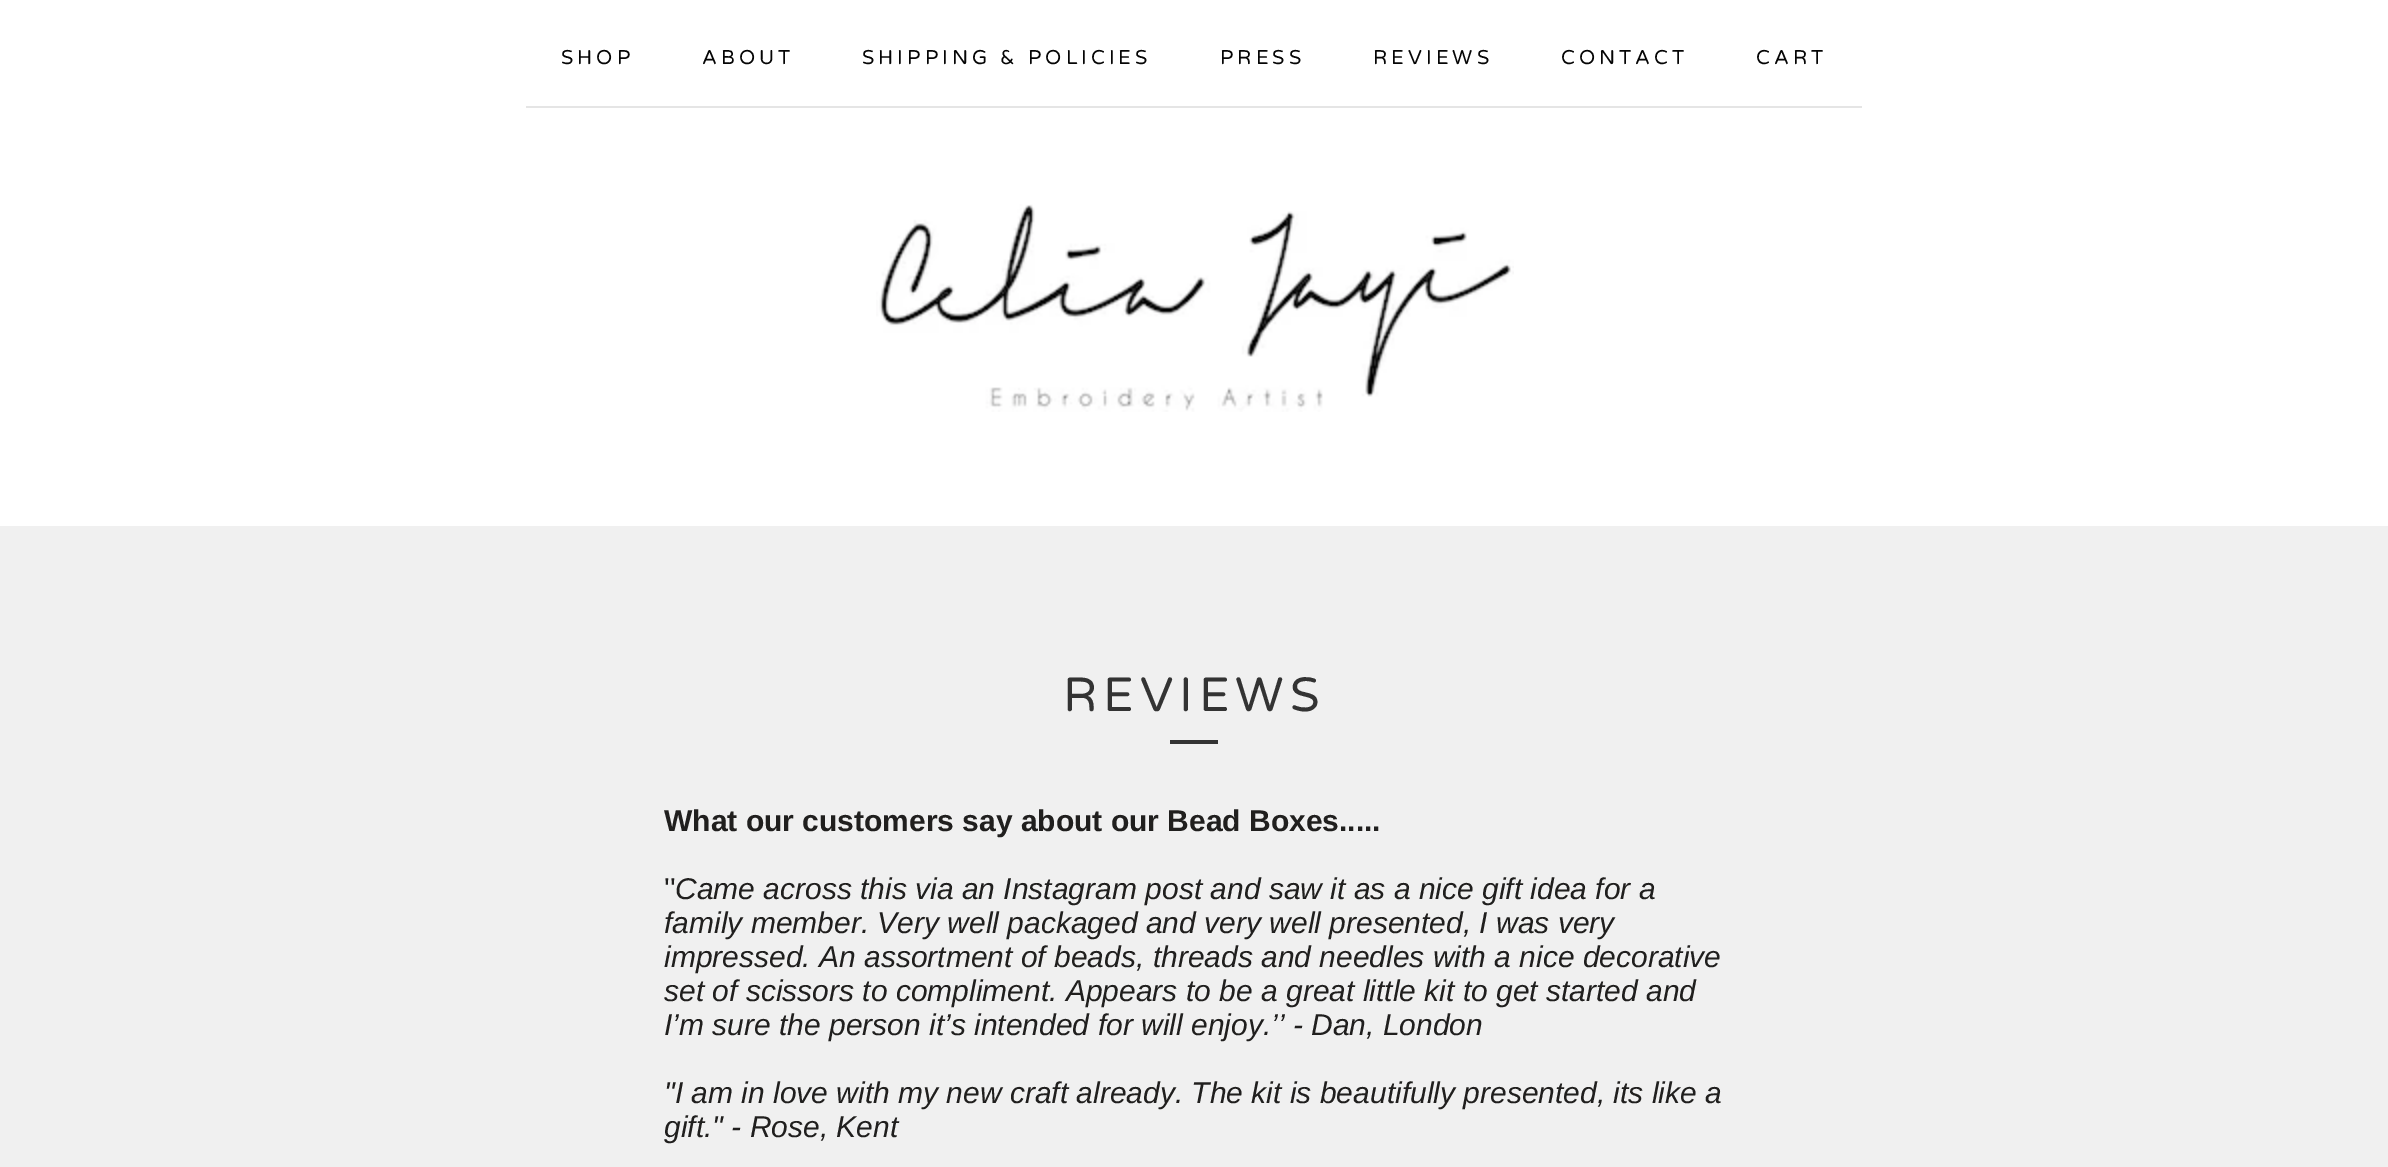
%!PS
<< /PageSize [2388 1167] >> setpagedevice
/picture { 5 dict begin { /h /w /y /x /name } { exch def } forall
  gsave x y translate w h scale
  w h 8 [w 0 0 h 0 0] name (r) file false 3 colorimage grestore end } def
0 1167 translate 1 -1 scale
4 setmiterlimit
1 setgray
0 0 2388 1167 rectfill
0.898 setgray
526 106 1336 2 rectfill
/VarelaRound-Regular [20 0 0 -20 0 0] selectfont
0.02 setgray
561 64 moveto 4 0 (SHOP) ashow
702 64 moveto 4 0 (ABOUT) ashow
862 64 moveto 4 0 (SHIPPING & POLICIES) ashow
1220 64 moveto 4 0 (PRESS) ashow
1373 64 moveto 4 0 (REVIEWS) ashow
1561 64 moveto 4 0 (CONTACT) ashow
1756 64 moveto 4 0 (CART) ashow
(img1.rgb) 876 204 638 208 picture
0.941 setgray
0 526 2388 641 rectfill
/VarelaRound-Regular [48 0 0 -48 0 0] selectfont
0.2 setgray
1063 711 moveto 6 0 (REVIEWS) ashow
1170 740 48 4 rectfill
/LiberationSans-Bold [30 0 0 -30 0 0] selectfont
0.125 0.122 0.118 setrgbcolor
664 831 moveto (What our customers say about our Bead Boxes.....) show
/LiberationSans-Regular [30 0 0 -30 0 0] selectfont
664 899 moveto ('') show
/LiberationSans-Italic [30 0 0 -30 0 0] selectfont
675 899 moveto (Came across this via an Instagram post and saw it as a nice gift idea for a) show
664 933 moveto (family member. Very well packaged and very well presented, I was very) show
664 967 moveto (impressed. An assortment of beads, threads and needles with a nice decorative) show
664 1001 moveto (set of scissors to compliment. Appears to be a great little kit to get started and) show
664 1035 moveto (I’m sure the person it’s intended for will enjoy.’’ - Dan, London) show
664 1103 moveto ("I am in love with my new craft already. The kit is beautifully presented, its like a) show
664 1137 moveto (gift." - Rose, Kent) show
showpage
